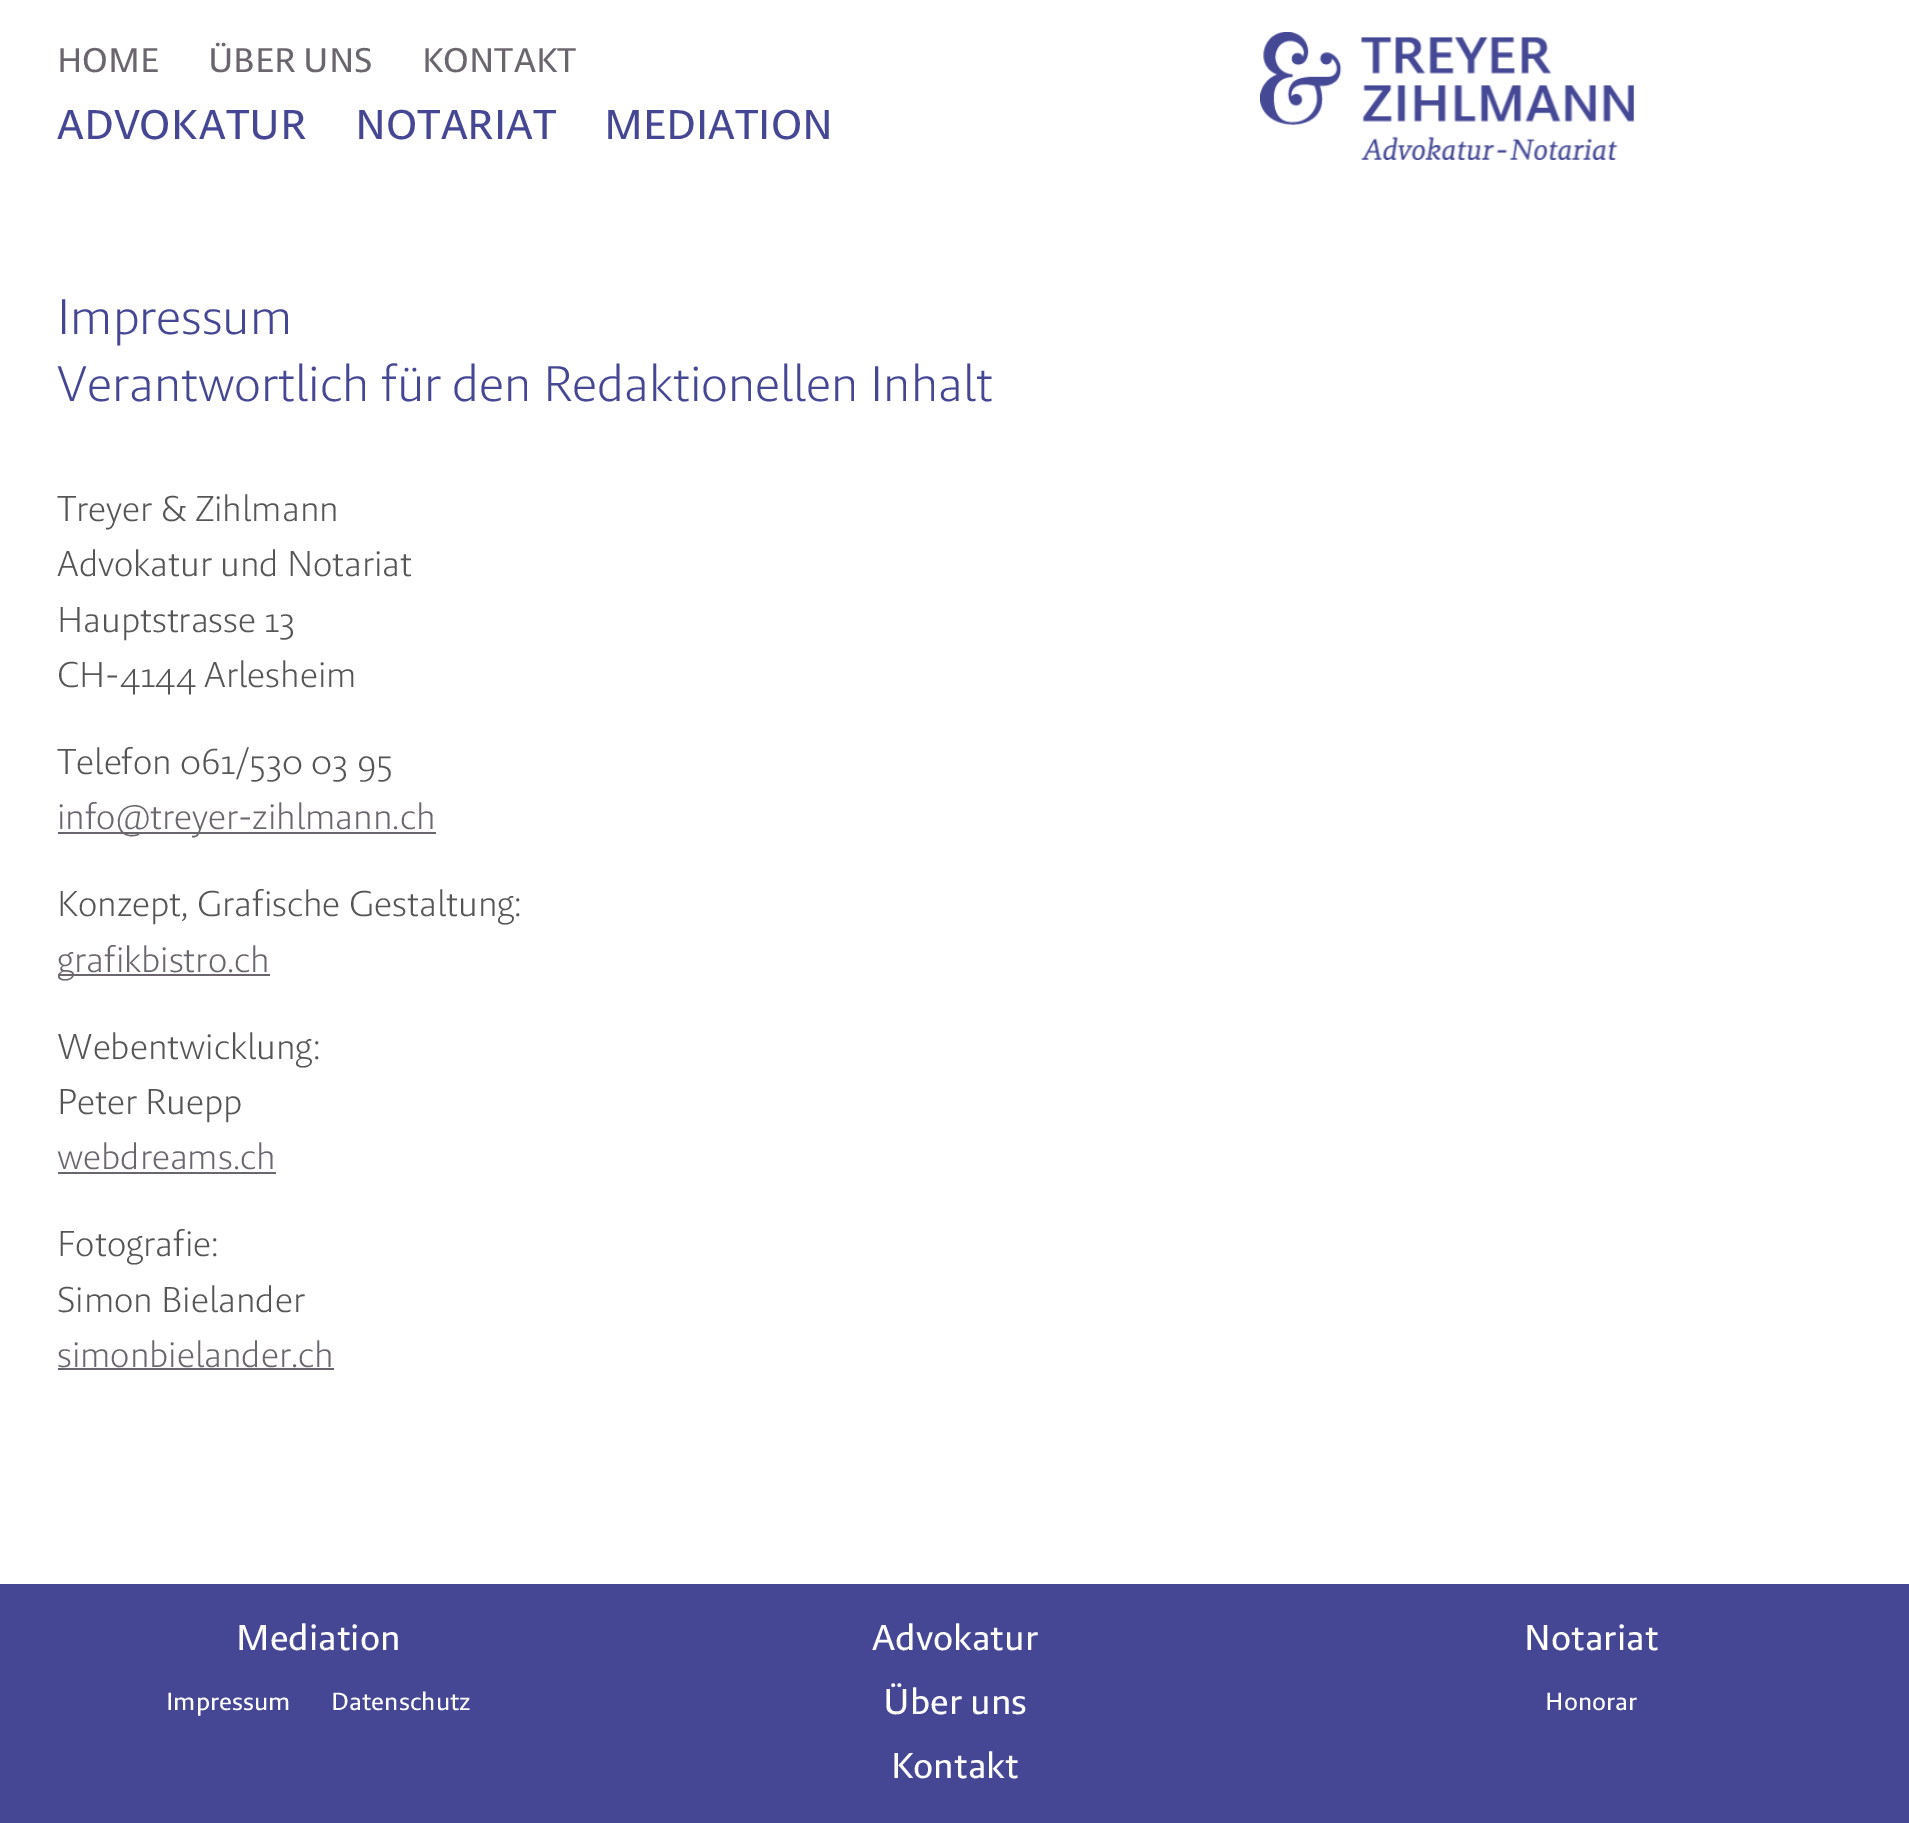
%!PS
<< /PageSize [1909 1823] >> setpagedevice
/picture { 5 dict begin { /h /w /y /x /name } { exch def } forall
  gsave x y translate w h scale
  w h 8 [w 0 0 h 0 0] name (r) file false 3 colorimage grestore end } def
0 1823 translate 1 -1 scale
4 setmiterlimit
1 setgray
0 0 1909 1823 rectfill
/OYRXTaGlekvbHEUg-Medium [35 0 0 -35 0 0] selectfont
0.42 0.4 0.431 setrgbcolor
57 72 moveto (HOME) show
208 72 moveto (ÜBER UNS) show
422 72 moveto (KONTAKT) show
/OYRXTaGlekvbHEUg-Medium [42.5 0 0 -42.5 0 0] selectfont
0.271 0.278 0.58 setrgbcolor
57 139 moveto (ADVOK) show
199 139 moveto (A) show
226 139 moveto (TUR) show
355 139 moveto (NOTARIAT) show
604 139 moveto (MEDIATION) show
(img1.rgb) 1260 32 374 128 picture
/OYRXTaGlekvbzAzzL-Light [51.25 0 0 -51.25 0 0] selectfont
57 334 moveto (Impressum) show
57 401 moveto (Verantwortlich für den Redaktionellen Inhalt) show
/OYRXTaGlekvbzAzzL-Light [36.75 0 0 -36.75 0 0] selectfont
0.333 setgray
57 521 moveto (Treyer & Zihlmann) show
57 576 moveto (Advokatur und Notariat) show
57 632 moveto (Hauptstrasse 13) show
57 687 moveto (CH-4144 Arlesheim) show
57 774 moveto (Telefon 061/530 03 95) show
0.42 0.4 0.431 setrgbcolor
58 832 378 2 rectfill
57 829 moveto (info@treyer-zihlmann.ch) show
0.333 setgray
57 916 moveto (Konzept, Grafische Gestaltung:) show
0.42 0.4 0.431 setrgbcolor
58 974 212 2 rectfill
57 972 moveto (grafikbistro.ch) show
0.333 setgray
57 1059 moveto (Webentwicklung:) show
57 1114 moveto (Peter Ruepp) show
0.42 0.4 0.431 setrgbcolor
57 1169 moveto (webdreams.ch) show
58 1172 218 2 rectfill
0.333 setgray
57 1256 moveto (Fotografie:) show
57 1312 moveto (Simon Bielander) show
0.42 0.4 0.431 setrgbcolor
57 1367 moveto (simonbielander.ch) show
58 1368 276 2 rectfill
0.271 0.278 0.58 setrgbcolor
0 1584 1909 239 rectfill
/OYRXTaGlekvbHEUg-Medium [36.75 0 0 -36.75 0 0] selectfont
1 setgray
236 1650 moveto (Mediation) show
/OYRXTaGlekvbHEUg-Medium [25.5 0 0 -25.5 0 0] selectfont
166 1710 moveto (Impressum) show
331 1710 moveto (Datenschutz) show
/OYRXTaGlekvbHEUg-Medium [36.75 0 0 -36.75 0 0] selectfont
872 1650 moveto (Advokatur) show
883 1714 moveto (Über uns) show
891 1778 moveto (Kontakt) show
1524 1650 moveto (Notariat) show
/OYRXTaGlekvbHEUg-Medium [25.5 0 0 -25.5 0 0] selectfont
1545 1710 moveto (Honorar) show
showpage
